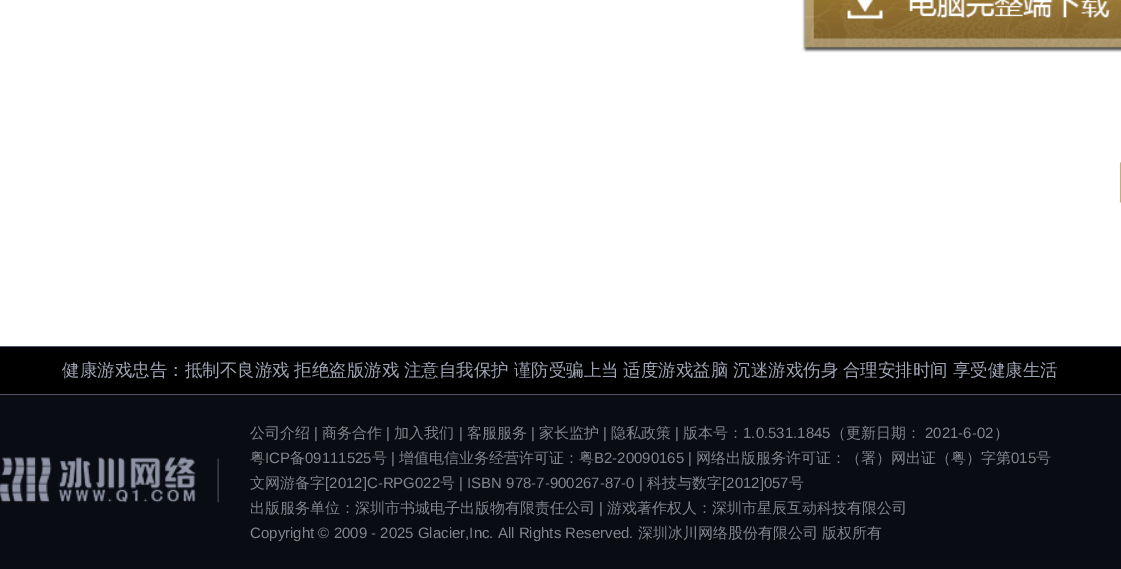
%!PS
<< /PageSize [1121 569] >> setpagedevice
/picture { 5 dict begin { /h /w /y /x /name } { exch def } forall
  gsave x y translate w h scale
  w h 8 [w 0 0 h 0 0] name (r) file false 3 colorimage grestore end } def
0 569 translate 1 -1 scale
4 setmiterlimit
1 setgray
0 0 1121 569 rectfill
(img1.rgb) 802 0 319 53 picture
(img2.rgb) 1119 162 2 41 picture
0.035 0.047 0.075 setrgbcolor
0 395 1121 174 rectfill
0 setgray
0 347 1121 47 rectfill
0.329 0.353 0.427 setrgbcolor
0 346 1121 1 rectfill
0.314 0.337 0.408 setrgbcolor
0 394 1121 1 rectfill
/WenQuanYiZenHei-Medium [17.5 0 0 -17.5 0 0] selectfont
0.62 0.643 0.706 setrgbcolor
62 376 moveto -0.5 0 32 (健康游戏忠告：抵制不良游戏 拒绝盗版游戏 注意自我保护 谨防受骗上当 适度游戏益脑 沉迷游戏伤身 合理安排时间 享受健康生活) widthshow
(img3.rgb) 0 457 219 46 picture
/WenQuanYiZenHei-Medium [15 0 0 -15 0 0] selectfont
0.51 0.518 0.537 setrgbcolor
250 438 moveto (公司介绍) show
/LiberationSans-Regular [15 0 0 -15 0 0] selectfont
314 438 moveto (|) show
/WenQuanYiZenHei-Medium [15 0 0 -15 0 0] selectfont
322 438 moveto (商务合作) show
/LiberationSans-Regular [15 0 0 -15 0 0] selectfont
386 438 moveto (|) show
/WenQuanYiZenHei-Medium [15 0 0 -15 0 0] selectfont
394 438 moveto (加入我们) show
/LiberationSans-Regular [15 0 0 -15 0 0] selectfont
459 438 moveto (|) show
/WenQuanYiZenHei-Medium [15 0 0 -15 0 0] selectfont
467 438 moveto (客服服务) show
/LiberationSans-Regular [15 0 0 -15 0 0] selectfont
531 438 moveto (|) show
/WenQuanYiZenHei-Medium [15 0 0 -15 0 0] selectfont
539 438 moveto (家长监护) show
/LiberationSans-Regular [15 0 0 -15 0 0] selectfont
603 438 moveto (|) show
/WenQuanYiZenHei-Medium [15 0 0 -15 0 0] selectfont
611 438 moveto (隐私政策) show
/LiberationSans-Regular [15 0 0 -15 0 0] selectfont
675 438 moveto (|) show
/WenQuanYiZenHei-Medium [15 0 0 -15 0 0] selectfont
683 438 moveto (版本号：) show
/LiberationSans-Regular [15 0 0 -15 0 0] selectfont
743 438 moveto (1.0.531.1845) show
/WenQuanYiZenHei-Medium [15 0 0 -15 0 0] selectfont
831 438 moveto (（更新日期：) show
/LiberationSans-Regular [15 0 0 -15 0 0] selectfont
925 438 moveto (2021-6-02) show
/WenQuanYiZenHei-Medium [15 0 0 -15 0 0] selectfont
994 438 moveto (）) show
250 463 moveto (粤) show
/LiberationSans-Regular [15 0 0 -15 0 0] selectfont
265 463 moveto (ICP) show
/WenQuanYiZenHei-Medium [15 0 0 -15 0 0] selectfont
290 463 moveto (备) show
/LiberationSans-Regular [15 0 0 -15 0 0] selectfont
305 463 moveto (09111525) show
/WenQuanYiZenHei-Medium [15 0 0 -15 0 0] selectfont
372 463 moveto (号) show
/LiberationSans-Regular [15 0 0 -15 0 0] selectfont
391 463 moveto (|) show
/WenQuanYiZenHei-Medium [15 0 0 -15 0 0] selectfont
399 463 moveto (增值电信业务经营许可证：粤) show
/LiberationSans-Regular [15 0 0 -15 0 0] selectfont
594 463 moveto (B2-20090165 |) show
/WenQuanYiZenHei-Medium [15 0 0 -15 0 0] selectfont
696 463 moveto (网络出版服务许可证：（署）网出证（粤）字第) show
/LiberationSans-Regular [15 0 0 -15 0 0] selectfont
1011 463 moveto (015) show
/WenQuanYiZenHei-Medium [15 0 0 -15 0 0] selectfont
1036 463 moveto (号) show
250 488 moveto (文网游备字) show
/LiberationSans-Regular [15 0 0 -15 0 0] selectfont
325 488 moveto ([2012]C-RPG022) show
/WenQuanYiZenHei-Medium [15 0 0 -15 0 0] selectfont
440 488 moveto (号) show
/LiberationSans-Regular [15 0 0 -15 0 0] selectfont
459 488 moveto (| ISBN 978-7-900267-87-0 |) show
/WenQuanYiZenHei-Medium [15 0 0 -15 0 0] selectfont
647 488 moveto (科技与数字) show
/LiberationSans-Regular [15 0 0 -15 0 0] selectfont
722 488 moveto ([2012]057) show
/WenQuanYiZenHei-Medium [15 0 0 -15 0 0] selectfont
789 488 moveto (号) show
250 513 moveto (出版服务单位：深圳市书城电子出版物有限责任公司) show
/LiberationSans-Regular [15 0 0 -15 0 0] selectfont
599 513 moveto (|) show
/WenQuanYiZenHei-Medium [15 0 0 -15 0 0] selectfont
607 513 moveto (游戏著作权人：深圳市星辰互动科技有限公司) show
/LiberationSans-Regular [15 0 0 -15 0 0] selectfont
250 538 moveto (Copyright © 2009 - 2025 Glacier,Inc. All Rights Reserved.) show
/WenQuanYiZenHei-Medium [15 0 0 -15 0 0] selectfont
638 538 moveto (深圳冰川网络股份有限公司) show
822 538 moveto (版权所有) show
showpage
